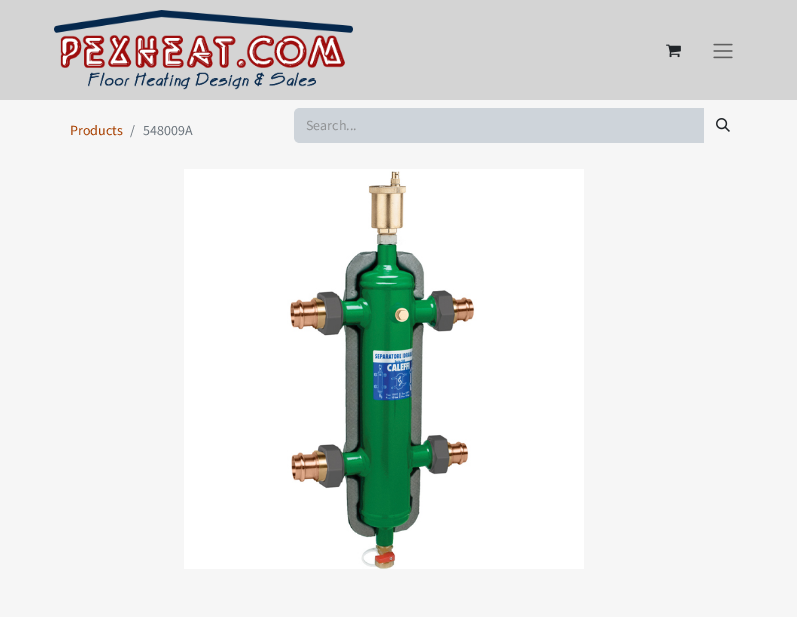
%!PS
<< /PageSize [797 617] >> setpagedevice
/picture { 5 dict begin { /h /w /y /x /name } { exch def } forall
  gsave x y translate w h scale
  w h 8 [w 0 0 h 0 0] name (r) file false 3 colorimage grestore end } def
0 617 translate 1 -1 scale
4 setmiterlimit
0.965 setgray
0 0 797 617 rectfill
0.831 setgray
0 0 797 100 rectfill
(img1.rgb) 54 10 299 80 picture
(img2.rgb) 666 44 15 14 picture
(img3.rgb) 713 43 20 16 picture
/SourceSansPro-Regular [14 0 0 -14 0 0] selectfont
0.659 0.251 0 setrgbcolor
70 135 moveto (Products) show
0.424 0.459 0.49 setrgbcolor
130 135 moveto (/) show
143 135 moveto (548009A) show
0.808 0.831 0.855 setrgbcolor
newpath 300 108 moveto 704 108 lineto 704 143 lineto 300 143 lineto 296.5 143 294 140.5 294 137 curveto 294 114 lineto 294 110.5 296.5 108 300 108 curveto closepath fill
0.565 0.573 0.58 setrgbcolor
306 130 moveto (Search...) show
(img4.rgb) 716 118 14 14 picture
(img5.rgb) 184 169 400 400 picture
showpage
